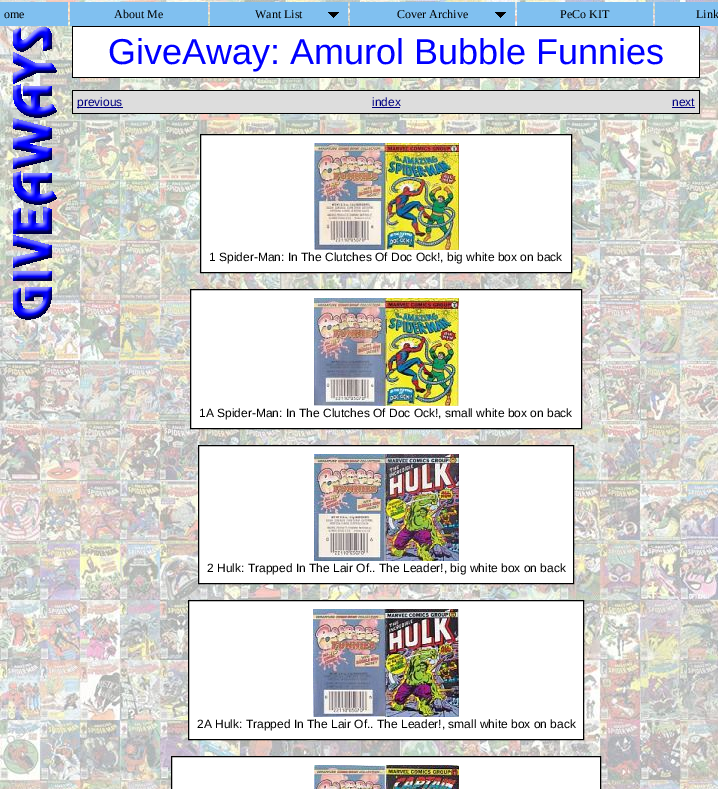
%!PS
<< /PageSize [718 789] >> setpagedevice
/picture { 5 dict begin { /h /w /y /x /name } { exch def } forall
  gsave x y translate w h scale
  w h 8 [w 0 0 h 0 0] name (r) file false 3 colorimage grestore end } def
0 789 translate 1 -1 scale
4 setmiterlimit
1 setgray
0 0 718 789 rectfill
(img1.rgb) 0 0 718 789 picture
0.502 0.753 0.941 setrgbcolor
0 2 68 24 rectfill
/LiberationSerif-Regular [12 0 0 -12 0 0] selectfont
0 setgray
4 18 moveto (ome) show
0.502 0.753 0.941 setrgbcolor
70 2 138 24 rectfill
0 setgray
114 18 moveto (About Me) show
0.502 0.753 0.941 setrgbcolor
210 2 138 24 rectfill
0 setgray
255 18 moveto (Want List) show
(img2.rgb) 328 12 11 6 picture
0.502 0.753 0.941 setrgbcolor
350 2 165 24 rectfill
0 setgray
397 18 moveto (Cover Archive) show
(img2.rgb) 495 12 11 6 picture
0.502 0.753 0.941 setrgbcolor
517 2 136 24 rectfill
0 setgray
560 18 moveto (PeCo KIT) show
0.502 0.753 0.941 setrgbcolor
655 2 63 24 rectfill
0 setgray
696 18 moveto (Link) show
(img3.rgb) 13 27 44 293 picture
72 26 628 1 rectfill
699 26 1 52 rectfill
72 77 628 1 rectfill
72 26 1 52 rectfill
1 setgray
73 27 626 50 rectfill
/LiberationSans-Regular [36 0 0 -36 0 0] selectfont
0 0 1 setrgbcolor
108 64 moveto (GiveAway: Amurol Bubble Funnies) show
0 setgray
72 90 628 1 rectfill
699 90 1 24 rectfill
72 113 628 1 rectfill
72 90 1 24 rectfill
0.867 setgray
73 91 626 22 rectfill
0 0 0.502 setrgbcolor
77 107 46 1 rectfill
/LiberationSans-Regular [12 0 0 -12 0 0] selectfont
77 106 moveto (previous) show
372 106 moveto (index) show
372 107 28 1 rectfill
672 106 moveto (next) show
672 107 23 1 rectfill
1 setgray
newpath 200.5 134.5 moveto 571.5 134.5 lineto 571.5 272.5 lineto 200.5 272.5 lineto closepath gsave fill grestore
0 setgray
stroke
(img4.rgb) 314 143 145 107 picture
209 261 moveto (1 Spider-Man: In The Clutches Of Doc Ock!, big white box on back) show
1 setgray
newpath 190.5 289.5 moveto 581.5 289.5 lineto 581.5 428.5 lineto 190.5 428.5 lineto closepath gsave fill grestore
0 setgray
stroke
(img5.rgb) 314 298 145 108 picture
199 417 moveto (1A Spider-Man: In The Clutches Of Doc Ock!, small white box on back) show
1 setgray
newpath 198.5 445.5 moveto 573.5 445.5 lineto 573.5 583.5 lineto 198.5 583.5 lineto closepath gsave fill grestore
0 setgray
stroke
(img6.rgb) 314 454 145 107 picture
207 572 moveto (2 Hulk: Trapped In The Lair Of.. The Leader!, big white box on back) show
1 setgray
newpath 188.5 600.5 moveto 583.5 600.5 lineto 583.5 739.5 lineto 188.5 739.5 lineto closepath gsave fill grestore
0 setgray
stroke
(img7.rgb) 313 609 146 108 picture
197 728 moveto (2A Hulk: Trapped In The Lair Of.. The Leader!, small white box on back) show
1 setgray
newpath 171.5 756.5 moveto 600.5 756.5 lineto 600.5 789.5 lineto 171.5 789.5 lineto closepath gsave fill grestore
0 setgray
stroke
(img8.rgb) 314 765 145 24 picture
showpage
